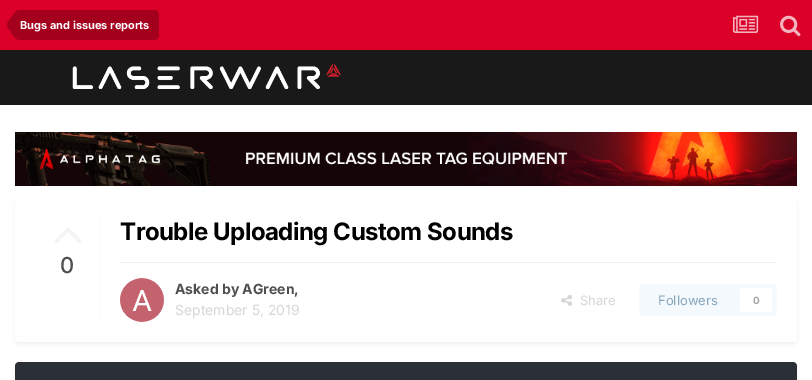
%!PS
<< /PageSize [812 380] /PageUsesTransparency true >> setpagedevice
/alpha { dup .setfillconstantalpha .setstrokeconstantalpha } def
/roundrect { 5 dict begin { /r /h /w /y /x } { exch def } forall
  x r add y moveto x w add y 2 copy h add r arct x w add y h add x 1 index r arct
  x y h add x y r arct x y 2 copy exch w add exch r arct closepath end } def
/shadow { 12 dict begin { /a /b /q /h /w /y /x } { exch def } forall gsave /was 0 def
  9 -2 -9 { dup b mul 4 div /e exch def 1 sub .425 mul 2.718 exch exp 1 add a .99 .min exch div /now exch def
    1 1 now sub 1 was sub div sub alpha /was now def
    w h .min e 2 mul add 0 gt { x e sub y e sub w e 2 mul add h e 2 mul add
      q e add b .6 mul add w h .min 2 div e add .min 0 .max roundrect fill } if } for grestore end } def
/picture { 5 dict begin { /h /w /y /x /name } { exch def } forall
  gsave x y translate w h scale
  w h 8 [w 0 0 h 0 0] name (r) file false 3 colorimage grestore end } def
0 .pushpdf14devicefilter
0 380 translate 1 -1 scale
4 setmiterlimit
1 setgray
0 0 812 380 rectfill
0.859 0 0.153 setrgbcolor
0 0 812 50 rectfill
0.643 0 0.114 setrgbcolor
newpath 20 10 moveto 154 10 lineto 157 10 159 12 159 15 curveto 159 35 lineto 159 38 157 40 154 40 curveto 20 40 lineto closepath fill
newpath 20 25 moveto 20 40 lineto 15.5 40 13.5 35.5 11 32 curveto 9.5 30 7 28 7 25 curveto closepath 20 25 moveto 7 25 lineto 7 22 9.5 20 11 18 curveto 13.5 14.5 15.5 10 20 10 curveto closepath fill
/Inter-Bold [11 0 0 -11 0 0] selectfont
1 setgray
20 29 moveto (Bugs and issues reports) show
(img1.rgb) 733 15 26 18 picture
(img2.rgb) 780 15 21 22 picture
0.098 setgray
0 50 812 55 rectfill
(img3.rgb) 72 64 269 25 picture
(img4.rgb) 15 132 782 54 picture
0.169 0.184 0.212 setrgbcolor
16 201 780 142 3 2 0.1 shadow
1 setgray
15 198 782 144 4 roundrect fill
0.976 setgray
99 218 1 104 rectfill
(img5.rgb) 54 227 28 16 picture
/Inter-Medium [22 0 0 -22 0 0] selectfont
0.31 setgray
60 273 moveto (0) show
/Inter-Bold [24 0 0 -24 0 0] selectfont
0 setgray
120 240 moveto -0.5 0 (Trouble Uploading Custom Sounds) ashow
0.945 setgray
120 262 657 1 rectfill
(img6.rgb) 120 278 44 44 picture
/Inter-Bold [14 0 0 -14 0 0] selectfont
0.31 setgray
175 294 moveto (Asked by AGreen,) show
/Inter-Regular [14 0 0 -14 0 0] selectfont
0.839 setgray
175 315 moveto (September 5, 2019) show
(img7.rgb) 561 294 11 12 picture
/Inter-Regular [13 0 0 -13 0 0] selectfont
580 305 moveto (Share) show
0.957 0.976 0.992 setrgbcolor
639 284 138 32 4 roundrect fill
0.529 0.651 0.737 setrgbcolor
658 305 moveto (Followers) show
1 setgray
740 288 32 24 4 roundrect fill
/Inter-Bold [10 0 0 -10 0 0] selectfont
0.655 setgray
753 304 moveto (0) show
0.169 0.184 0.212 setrgbcolor
16 365 780 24 3 2 0.1 shadow
newpath 19 362 moveto 793 362 lineto 795 362 797 364 797 366 curveto 797 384 lineto 15 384 lineto 15 366 lineto 15 364 17 362 19 362 curveto closepath fill
.poppdf14devicefilter showpage
